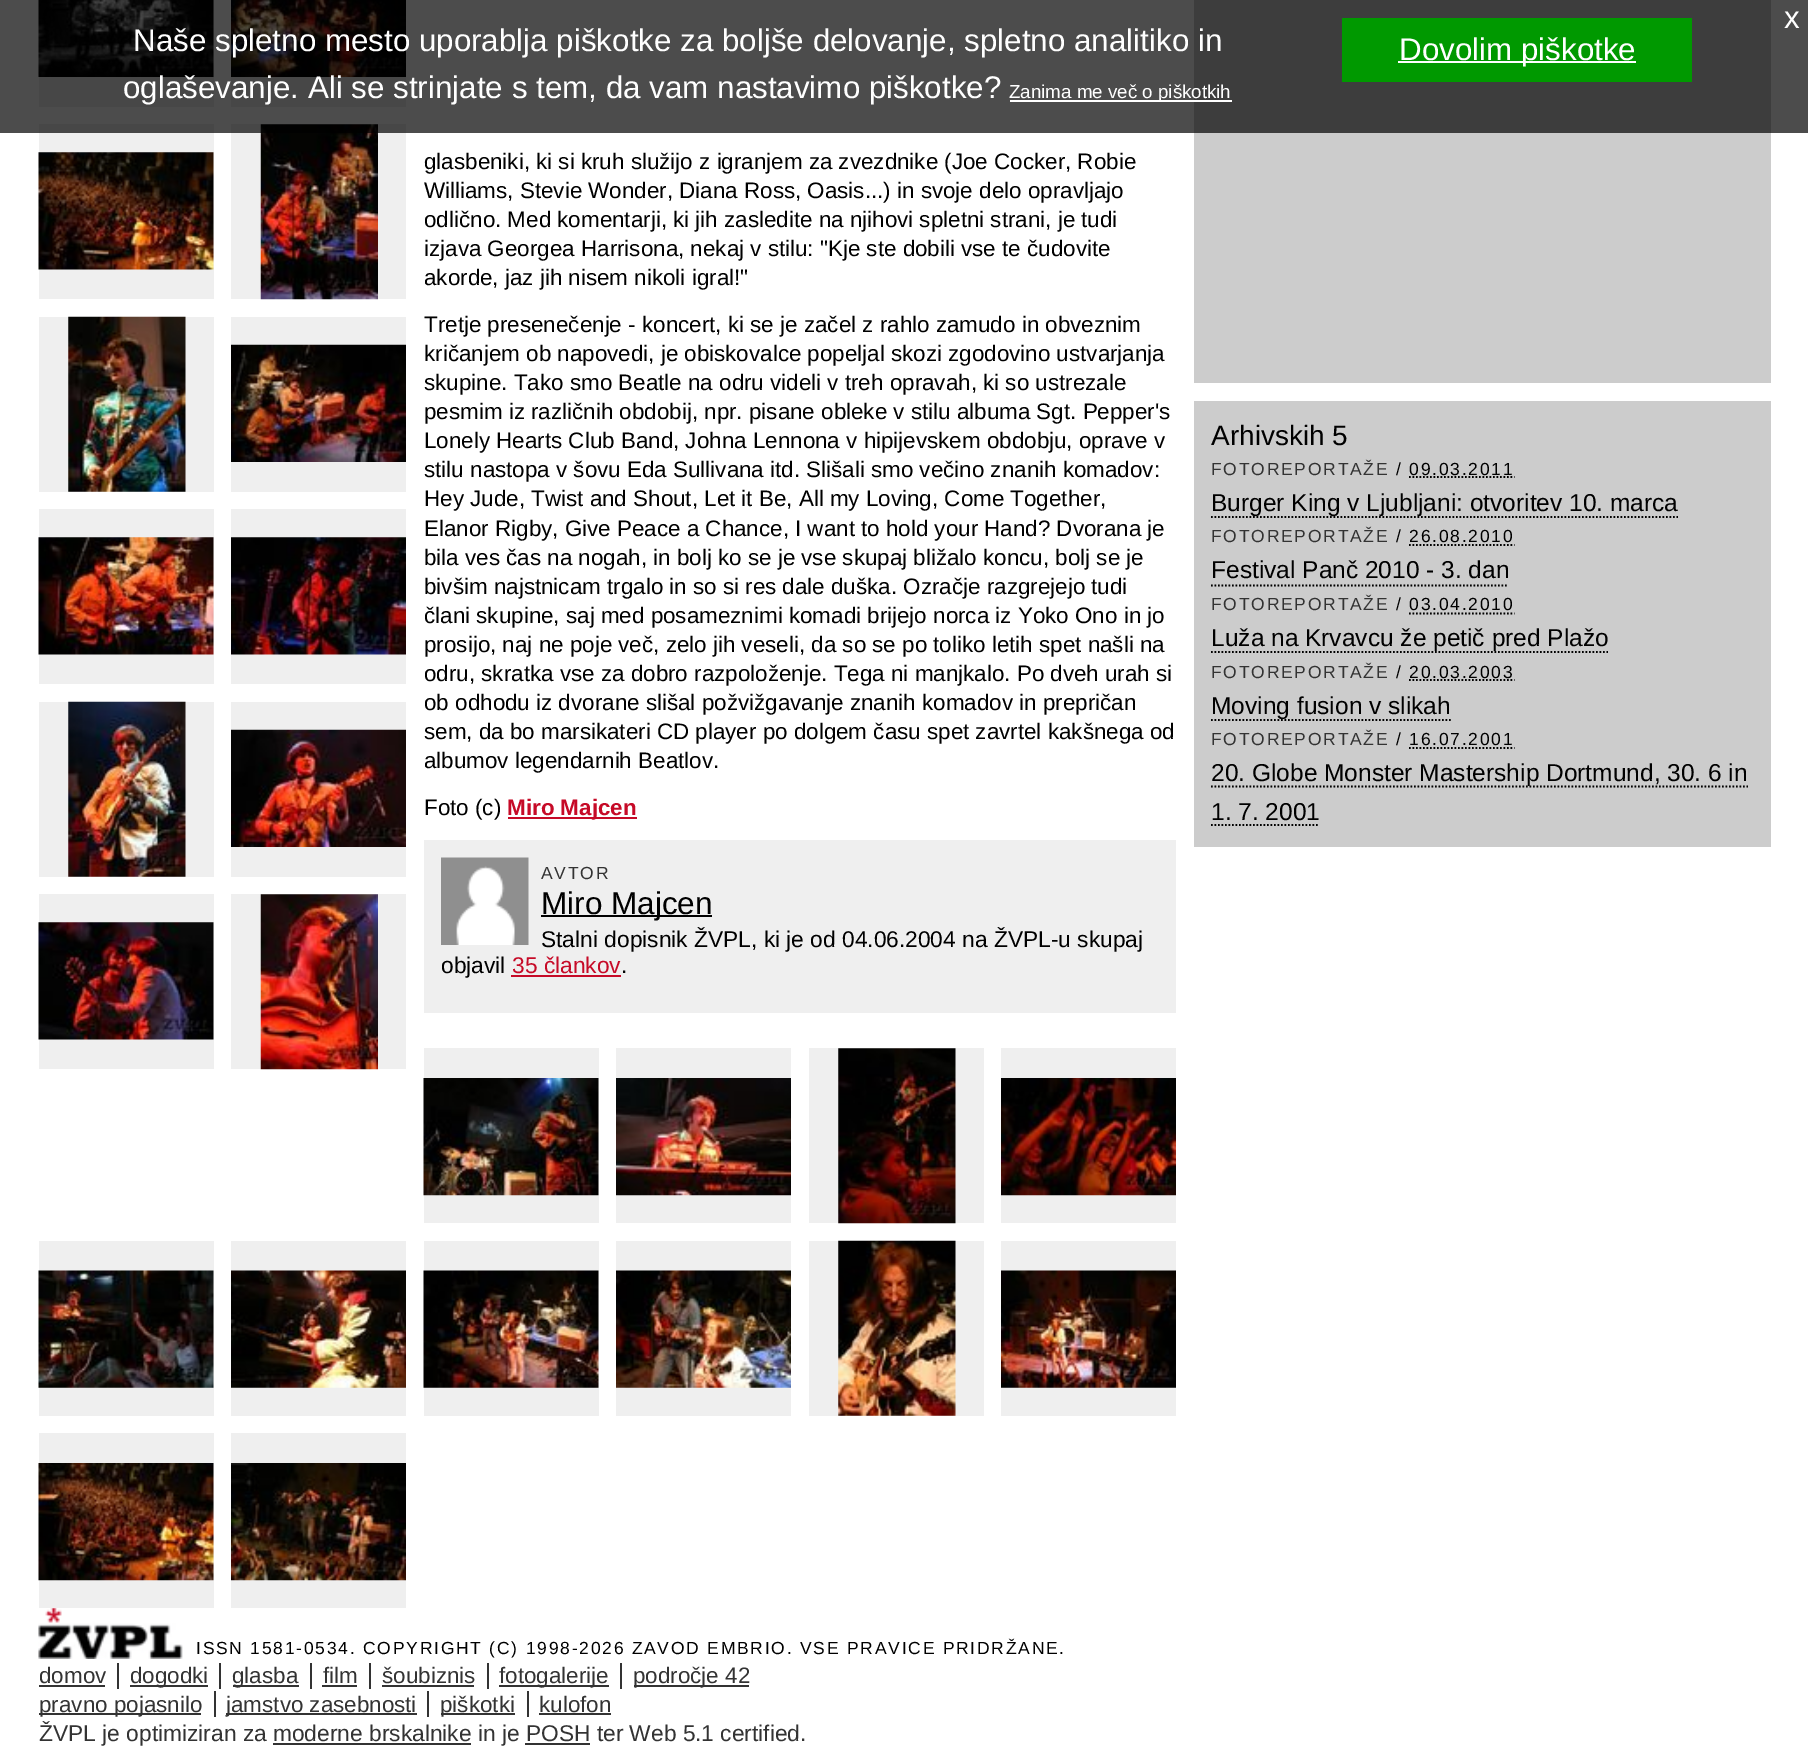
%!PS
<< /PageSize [1808 1764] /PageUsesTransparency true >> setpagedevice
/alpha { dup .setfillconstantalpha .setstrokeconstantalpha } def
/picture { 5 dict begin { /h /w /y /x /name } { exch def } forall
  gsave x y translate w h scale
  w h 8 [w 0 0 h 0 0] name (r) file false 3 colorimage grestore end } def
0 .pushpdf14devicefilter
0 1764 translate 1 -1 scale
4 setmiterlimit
1 setgray
0 0 1808 1764 rectfill
0.937 setgray
39 0 175 107 rectfill
(img1.rgb) 38 0 176 77 picture
231 77 175 30 rectfill
(img2.rgb) 231 0 175 77 picture
39 124 175 175 rectfill
231 124 175 175 rectfill
(img4.rgb) 260 124 118 176 picture
0.8 setgray
1194 0 577 383 rectfill
0.7 alpha
0 setgray
0 0 1808 133 rectfill
/LiberationSans-Regular [31.35 0 0 -31.35 0 0] selectfont
1 alpha
1 setgray
1784 28 moveto (x) show
133 51 moveto (Naše spletno mesto uporablja piškotke za boljše delovanje, spletno analitiko in) show
123 98 moveto (oglaševanje. Ali se strinjate s tem, da vam nastavimo piškotke?) show
1010 100 222 2 rectfill
/LiberationSans-Regular [18.75 0 0 -18.75 0 0] selectfont
1009 98 moveto (Zanima me več o piškotkih) show
0 0.6 0 setrgbcolor
1342 18 350 64 rectfill
1 setgray
1398 61 238 2 rectfill
/LiberationSans-Regular [31.35 0 0 -31.35 0 0] selectfont
1399 60 moveto (Dovolim piškotke) show
(img3.rgb) 38 152 176 118 picture
0.937 setgray
39 317 175 175 rectfill
(img5.rgb) 68 316 118 176 picture
231 317 175 175 rectfill
(img6.rgb) 231 344 175 118 picture
39 509 175 175 rectfill
(img7.rgb) 38 537 176 118 picture
231 509 175 175 rectfill
(img8.rgb) 231 537 175 118 picture
39 702 175 175 rectfill
(img9.rgb) 68 701 118 176 picture
231 702 175 175 rectfill
(img10.rgb) 231 729 175 118 picture
39 894 175 175 rectfill
(img11.rgb) 38 922 176 118 picture
231 894 175 175 rectfill
(img12.rgb) 260 894 118 176 picture
424 1048 175 175 rectfill
(img13.rgb) 423 1078 176 118 picture
616 1048 175 175 rectfill
(img14.rgb) 616 1078 175 118 picture
809 1048 175 175 rectfill
(img15.rgb) 838 1048 118 176 picture
1001 1048 175 175 rectfill
(img16.rgb) 1001 1078 175 118 picture
39 1241 175 175 rectfill
(img17.rgb) 38 1270 176 118 picture
231 1241 175 175 rectfill
(img18.rgb) 231 1270 175 118 picture
424 1241 175 175 rectfill
(img19.rgb) 423 1270 176 118 picture
616 1241 175 175 rectfill
(img20.rgb) 616 1270 175 118 picture
809 1241 175 175 rectfill
(img21.rgb) 838 1240 118 176 picture
1001 1241 175 175 rectfill
(img22.rgb) 1001 1270 175 118 picture
39 1433 175 175 rectfill
(img23.rgb) 38 1463 176 118 picture
231 1433 175 175 rectfill
(img24.rgb) 231 1463 175 118 picture
/LiberationSans-Regular [22.4 0 0 -22.4 0 0] selectfont
0 setgray
424 169 moveto (glasbeniki, ki si kruh služijo z igranjem za zvezdnike \(Joe Cocker, Robie) show
424 198 moveto (Williams, Stevie Wonder, Diana Ross, Oasis...\) in svoje delo opravljajo) show
424 227 moveto (odlično. Med komentarji, ki jih zasledite na njihovi spletni strani, je tudi) show
424 256 moveto (izjava Georgea Harrisona, nekaj v stilu: "Kje ste dobili vse te čudovite) show
424 285 moveto (akorde, jaz jih nisem nikoli igral!") show
424 332 moveto (Tretje presenečenje - koncert, ki se je začel z rahlo zamudo in obveznim) show
424 361 moveto (kričanjem ob napovedi, je obiskovalce popeljal skozi zgodovino ustvarjanja) show
424 390 moveto (skupine. Tako smo Beatle na odru videli v treh opravah, ki so ustrezale) show
424 419 moveto (pesmim iz različnih obdobij, npr. pisane obleke v stilu albuma Sgt. Pepper's) show
424 448 moveto (Lonely Hearts Club Band, Johna Lennona v hipijevskem obdobju, oprave v) show
424 477 moveto (stilu nastopa v šovu Eda Sullivana itd. Slišali smo večino znanih komadov:) show
424 506 moveto (Hey Jude, Twist and Shout, Let it Be, All my Loving, Come Together,) show
424 536 moveto (Elanor Rigby, Give Peace a Chance, I want to hold your Hand? Dvorana je) show
424 565 moveto (bila ves čas na nogah, in bolj ko se je vse skupaj bližalo koncu, bolj se je) show
424 594 moveto (bivšim najstnicam trgalo in so si res dale duška. Ozračje razgrejejo tudi) show
424 623 moveto (člani skupine, saj med posameznimi komadi brijejo norca iz Yoko Ono in jo) show
424 652 moveto (prosijo, naj ne poje več, zelo jih veseli, da so se po toliko letih spet našli na) show
424 681 moveto (odru, skratka vse za dobro razpoloženje. Tega ni manjkalo. Po dveh urah si) show
424 710 moveto (ob odhodu iz dvorane slišal požvižgavanje znanih komadov in prepričan) show
424 739 moveto (sem, da bo marsikateri CD player po dolgem času spet zavrtel kakšnega od) show
424 768 moveto (albumov legendarnih Beatlov.) show
424 815 moveto (Foto \(c\)) show
0.776 0.039 0.153 setrgbcolor
508 817 129 2 rectfill
/LiberationSans-Bold [22.4 0 0 -22.4 0 0] selectfont
507 815 moveto (Miro Majcen) show
0.937 setgray
424 840 752 173 rectfill
(img25.rgb) 441 857 88 88 picture
/LiberationSans-Regular [17.5 0 0 -17.5 0 0] selectfont
0.2 setgray
541 879 moveto 1.75 0 (AVTOR) ashow
0 setgray
541 915 171 2 rectfill
/LiberationSans-Regular [31.5 0 0 -31.5 0 0] selectfont
541 914 moveto (Miro Majcen) show
/LiberationSans-Regular [22.75 0 0 -22.75 0 0] selectfont
541 947 moveto (Stalni dopisnik ŽVPL, ki je od 04.06.2004 na ŽVPL-u skupaj) show
441 973 moveto (objavil) show
0.776 0.039 0.153 setrgbcolor
512 973 moveto (35 člankov) show
511 975 110 2 rectfill
0 setgray
621 973 moveto (.) show
0.8 setgray
1194 401 577 446 rectfill
/LiberationSans-Regular [28 0 0 -28 0 0] selectfont
0 setgray
1211 445 moveto (Arhivskih 5) show
/LiberationSans-Regular [17.5 0 0 -17.5 0 0] selectfont
0.2 setgray
1211 475 moveto 1.75 0 (FOTOREPORTAŽE) ashow
0 setgray
1396 475 moveto 1.75 0 (/ 09.03.2011) ashow
1.8 setlinewidth
[1.75 1.75] 0 setdash
newpath 1409 477 moveto 1514.5 477 lineto stroke
newpath 1211 517 moveto 1678 517 lineto stroke
/LiberationSans-Regular [24.5 0 0 -24.5 0 0] selectfont
1211 511 moveto (Burger King v Ljubljani: otvoritev 10. marca) show
/LiberationSans-Regular [17.5 0 0 -17.5 0 0] selectfont
0.2 setgray
1211 542 moveto 1.75 0 (FOTOREPORTAŽE) ashow
0 setgray
1396 542 moveto 1.75 0 (/ 26.08.2010) ashow
newpath 1409 545 moveto 1514.5 545 lineto stroke
/LiberationSans-Regular [24.5 0 0 -24.5 0 0] selectfont
1211 578 moveto (Festival Panč 2010 - 3. dan) show
newpath 1211 585.5 moveto 1508.5 585.5 lineto stroke
/LiberationSans-Regular [17.5 0 0 -17.5 0 0] selectfont
0.2 setgray
1211 610 moveto 1.75 0 (FOTOREPORTAŽE) ashow
0 setgray
1396 610 moveto 1.75 0 (/ 03.04.2010) ashow
newpath 1409 613.5 moveto 1514.5 613.5 lineto stroke
newpath 1211 652 moveto 1608 652 lineto stroke
/LiberationSans-Regular [24.5 0 0 -24.5 0 0] selectfont
1211 646 moveto (Luža na Krvavcu že petič pred Plažo) show
/LiberationSans-Regular [17.5 0 0 -17.5 0 0] selectfont
0.2 setgray
1211 678 moveto 1.75 0 (FOTOREPORTAŽE) ashow
0 setgray
1396 678 moveto 1.75 0 (/ 20.03.2003) ashow
newpath 1409 680 moveto 1514.5 680 lineto stroke
newpath 1211 720 moveto 1451 720 lineto stroke
/LiberationSans-Regular [24.5 0 0 -24.5 0 0] selectfont
1211 714 moveto (Moving fusion v slikah) show
/LiberationSans-Regular [17.5 0 0 -17.5 0 0] selectfont
0.2 setgray
1211 745 moveto 1.75 0 (FOTOREPORTAŽE) ashow
0 setgray
1396 745 moveto 1.75 0 (/ 16.07.2001) ashow
newpath 1409 748 moveto 1514.5 748 lineto stroke
newpath 1211 786.5 moveto 1748 786.5 lineto stroke
/LiberationSans-Regular [24.5 0 0 -24.5 0 0] selectfont
1211 781 moveto (20. Globe Monster Mastership Dortmund, 30. 6 in) show
1211 820 moveto (1. 7. 2001) show
newpath 1211 825 moveto 1319.5 825 lineto stroke
(img26.rgb) 38 1608 145 51 picture
/LiberationSans-Regular [17.5 0 0 -17.5 0 0] selectfont
196 1654 moveto 1.75 0 (ISSN 1581-0534. COPYRIGHT \(C\) 1998-2026 ZAVOD EMBRIO. VSE PRAVICE PRIDRŽANE.) ashow
/LiberationSans-Regular [22.4 0 0 -22.4 0 0] selectfont
0.2 setgray
39 1683 moveto (domov) show
117 1663 2 26 rectfill
39 1685 66 2 rectfill
130 1685 78 2 rectfill
130 1683 moveto (dogodki) show
219 1663 2 26 rectfill
233 1685 66 2 rectfill
232 1683 moveto (glasba) show
310 1663 2 26 rectfill
323 1683 moveto (film) show
369 1663 2 26 rectfill
322 1685 35 2 rectfill
382 1683 moveto (šoubiznis) show
487 1663 2 26 rectfill
382 1685 92 2 rectfill
499 1685 110 2 rectfill
499 1683 moveto (fotogalerije) show
620 1663 2 26 rectfill
634 1685 115 2 rectfill
633 1683 moveto (področje 42) show
39 1713 162 2 rectfill
39 1712 moveto (pravno pojasnilo) show
214 1691 2 26 rectfill
226 1713 191 2 rectfill
226 1712 moveto (jamstvo zasebnosti) show
427 1691 2 26 rectfill
441 1713 74 2 rectfill
440 1712 moveto (piškotki) show
527 1691 2 26 rectfill
539 1712 moveto (kulofon) show
539 1713 72 2 rectfill
/LiberationSans-Regular [22.75 0 0 -22.75 0 0] selectfont
39 1741 moveto (ŽVPL je optimiziran za moderne brskalnike in je POSH ter Web 5.1 certified.) show
273 1743 198 2 rectfill
525 1743 65 2 rectfill
.poppdf14devicefilter showpage
